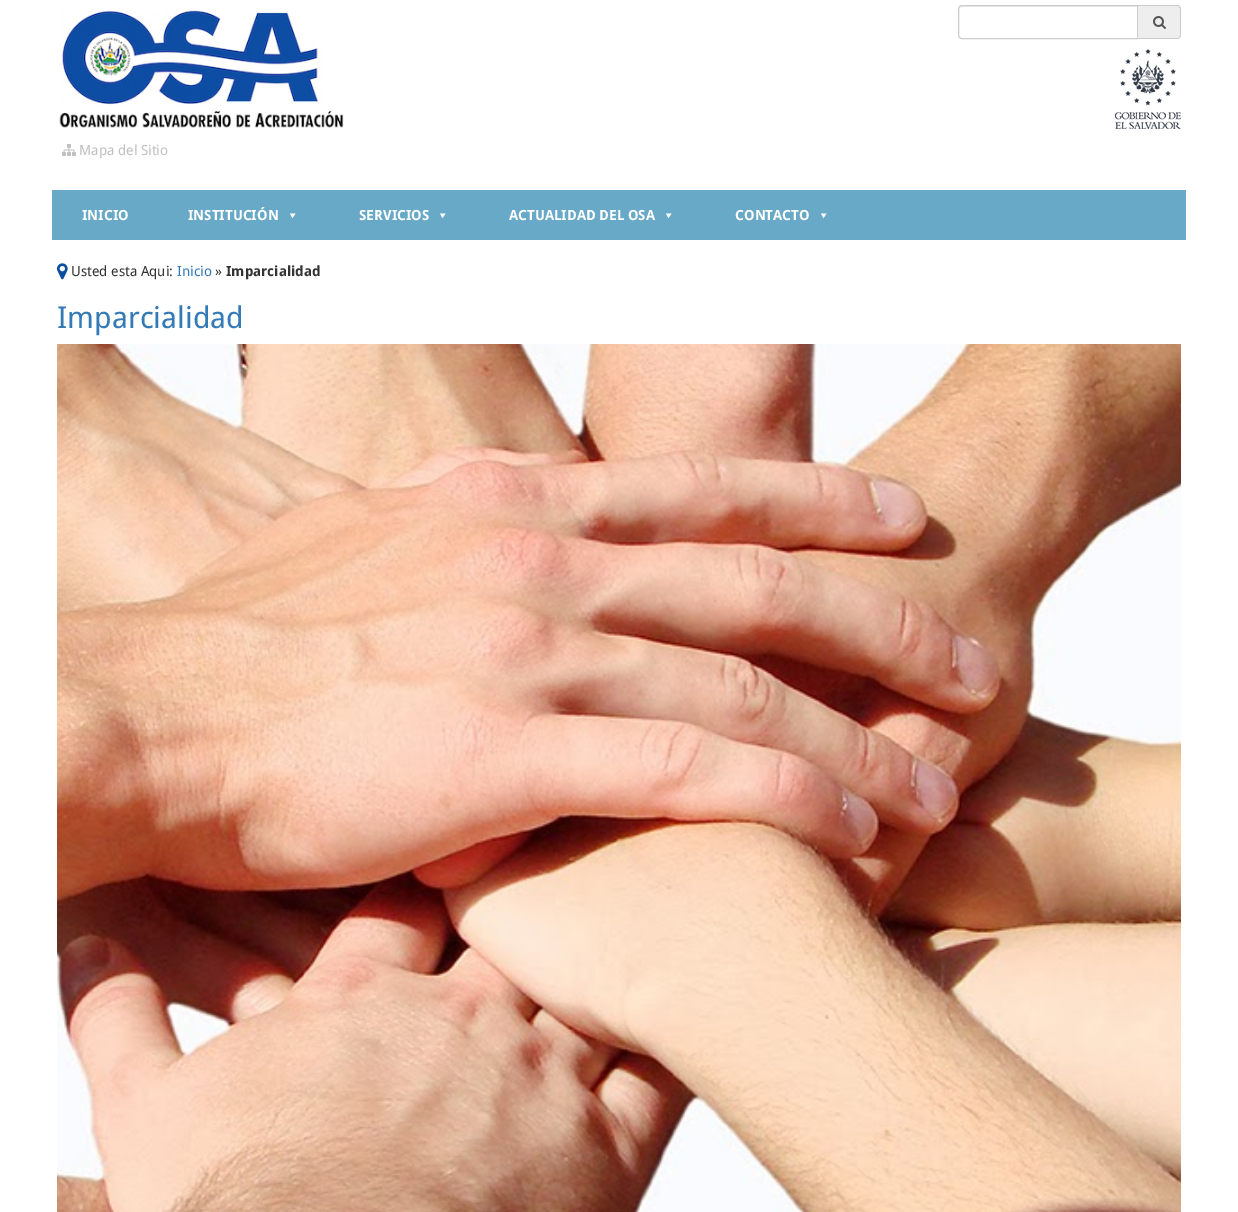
%!PS
<< /PageSize [1238 1212] >> setpagedevice
/picture { 5 dict begin { /h /w /y /x /name } { exch def } forall
  gsave x y translate w h scale
  w h 8 [w 0 0 h 0 0] name (r) file false 3 colorimage grestore end } def
0 1212 translate 1 -1 scale
4 setmiterlimit
1 setgray
0 0 1238 1212 rectfill
0.925 setgray
newpath 962 7 moveto 1137 7 lineto 1137 6 lineto 961 6 lineto 959 7 959 8 959 10 curveto 959 8 960 7 962 7 curveto closepath fill
0.8 setgray
newpath 962 5.5 moveto 1137.5 5.5 lineto 1137.5 38.5 lineto 962 38.5 lineto 960 38.5 958.5 37 958.5 35 curveto 958.5 9 lineto 958.5 7 960 5.5 962 5.5 curveto closepath stroke
0.933 setgray
newpath 1138 5 moveto 1177 5 lineto 1179 5 1181 7 1181 9 curveto 1181 35 lineto 1181 37 1179 39 1177 39 curveto 1138 39 lineto closepath fill
0.8 setgray
newpath 1138 5 moveto 1177 5 lineto 1179 5 1181 7 1181 9 curveto 1181 35 lineto 1181 37 1179 39 1177 39 curveto 1138 39 lineto closepath 1138 6 moveto 1177 6 lineto 1179 6 1180 7 1180 9 curveto 1180 35 lineto 1180 37 1179 38 1177 38 curveto 1138 38 lineto closepath eofill
(img1.rgb) 1153 16 13 13 picture
(img2.rgb) 1115 49 66 80 picture
(img3.rgb) 59 10 285 118 picture
(img4.rgb) 62 144 14 12 picture
/DroidSans-Regular [14 0 0 -14 0 0] selectfont
0.753 setgray
79 155 moveto (Mapa del Sitio) show
0.412 0.663 0.784 setrgbcolor
52 190 1134 50 rectfill
/DroidSans-Bold [14 0 0 -14 0 0] selectfont
1 setgray
82 220 moveto (INICIO) show
188 220 moveto (INSTITUCIÓN) show
newpath 295.5 213.5 moveto 292.5 218 lineto 290 213.5 lineto closepath fill
359 220 moveto (SERVICIOS) show
newpath 445.5 213.5 moveto 442.5 218 lineto 440 213.5 lineto closepath fill
509 220 moveto (ACTUALIDAD DEL OSA) show
newpath 671.5 213.5 moveto 668.5 218 lineto 666 213.5 lineto closepath fill
735 220 moveto (CONTACTO) show
newpath 826.5 213.5 moveto 823.5 218 lineto 821 213.5 lineto closepath fill
(img5.rgb) 57 263 11 17 picture
/DroidSans-Regular [14 0 0 -14 0 0] selectfont
0.2 setgray
71 276 moveto (Usted esta Aqui:) show
0.2 0.478 0.718 setrgbcolor
177 276 moveto (Inicio) show
0.2 setgray
215 276 moveto (») show
/DroidSans-Bold [14 0 0 -14 0 0] selectfont
226 276 moveto (Imparcialidad) show
/DroidSans-Regular [30 0 0 -30 0 0] selectfont
0.2 0.478 0.718 setrgbcolor
57 328 moveto (Imparcialidad) show
(img6.rgb) 57 344 1124 868 picture
showpage
